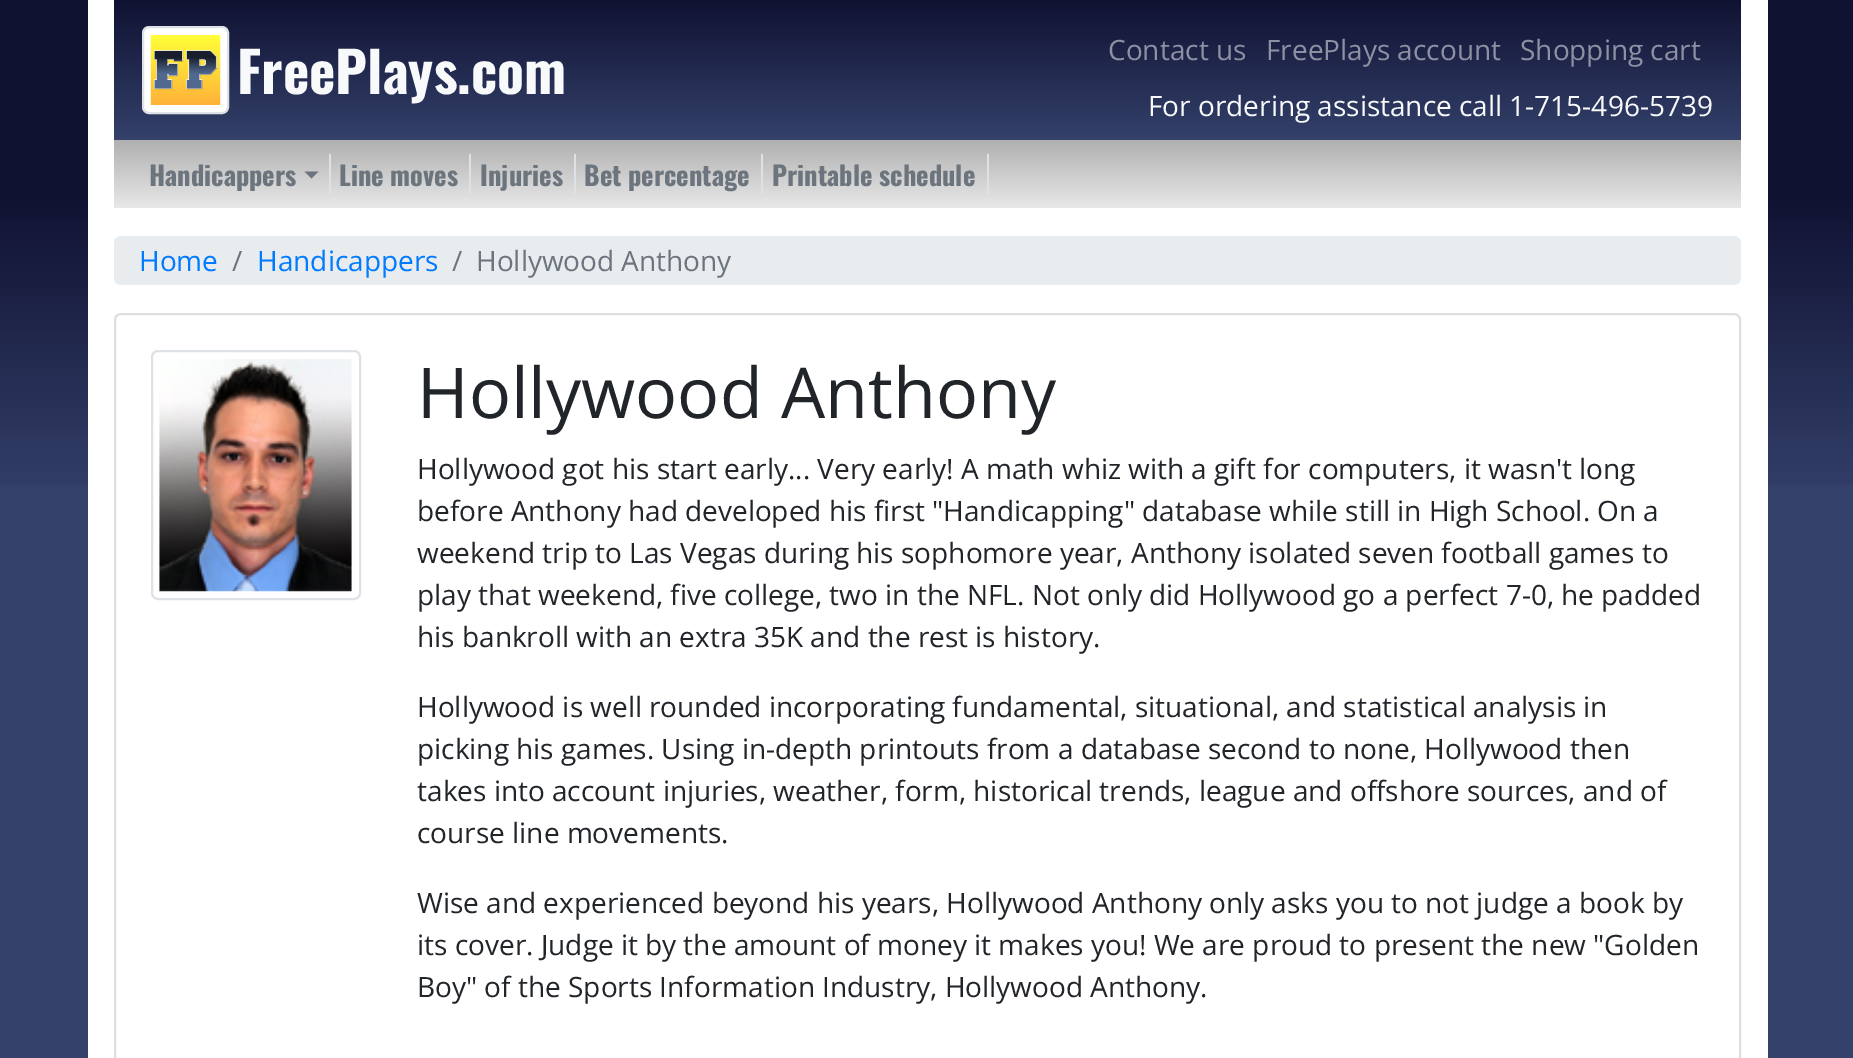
%!PS
<< /PageSize [1853 1058] >> setpagedevice
/roundrect { 5 dict begin { /r /h /w /y /x } { exch def } forall
  x r add y moveto x w add y 2 copy h add r arct x w add y h add x 1 index r arct
  x y h add x y r arct x y 2 copy exch w add exch r arct closepath end } def
/picture { 5 dict begin { /h /w /y /x /name } { exch def } forall
  gsave x y translate w h scale
  w h 8 [w 0 0 h 0 0] name (r) file false 3 colorimage grestore end } def
0 1058 translate 1 -1 scale
4 setmiterlimit
0.204 0.255 0.42 setrgbcolor
0 0 1853 1058 rectfill
(img1.rgb) 0 0 1853 485 picture
1 setgray
88 0 1680 1058 rectfill
gsave newpath 114 0 moveto 1741 0 lineto 1741 140 lineto 114 140 lineto closepath clip newpath
<< /ShadingType 2 /ColorSpace /DeviceRGB /Coords [928 0 928 140] /Extend [true true] /Function << /FunctionType 2 /Domain [0 1] /C0 [0.063 0.071 0.196] /C1 [0.204 0.255 0.42] /N 1 >> >> shfill grestore
143 27 85 86 6 roundrect gsave fill grestore
0.871 0.886 0.902 setrgbcolor
2 setlinewidth
stroke
(img2.rgb) 150 35 71 70 picture
/Oswald-Bold [56 0 0 -56 0 0] selectfont
0.973 0.976 0.98 setrgbcolor
237 94 moveto (FreePlays.com) show
/OpenSans-Regular [28 0 0 -28 0 0] selectfont
0.557 0.569 0.639 setrgbcolor
1108 60 moveto (Contact us) show
1266 60 moveto (FreePlays account) show
1520 60 moveto (Shopping cart) show
0.973 0.976 0.98 setrgbcolor
1148 116 moveto (For ordering assistance call 1-715-496-5739) show
gsave newpath 114 140 moveto 1741 140 lineto 1741 208 lineto 114 208 lineto closepath clip newpath
<< /ShadingType 2 /ColorSpace /DeviceRGB /Coords [928 208 928 140] /Extend [true true] /Function << /FunctionType 2 /Domain [0 1] /C0 [0.91 0.91 0.91] /C1 [0.69 0.69 0.69] /N 1 >> >> shfill grestore
0.871 0.886 0.902 setrgbcolor
329 154 2 40 rectfill
/Oswald-Bold [26.5 0 0 -26.5 0 0] selectfont
0.424 0.459 0.49 setrgbcolor
149 186 moveto (Handicappers) show
newpath 304.5 171.5 moveto 318.5 171.5 lineto 311.5 178.5 lineto closepath fill
0.871 0.886 0.902 setrgbcolor
469 154 2 40 rectfill
0.424 0.459 0.49 setrgbcolor
339 186 moveto (Line moves) show
0.871 0.886 0.902 setrgbcolor
574 154 2 40 rectfill
0.424 0.459 0.49 setrgbcolor
480 186 moveto (Injuries) show
0.871 0.886 0.902 setrgbcolor
761 154 2 40 rectfill
0.424 0.459 0.49 setrgbcolor
584 186 moveto (Bet percentage) show
0.871 0.886 0.902 setrgbcolor
987 154 2 40 rectfill
0.424 0.459 0.49 setrgbcolor
772 186 moveto (Printable schedule) show
0.914 0.925 0.937 setrgbcolor
114 236 1627 49 7 roundrect fill
/OpenSans-Regular [28 0 0 -28 0 0] selectfont
0 0.482 1 setrgbcolor
139 271 moveto (Home) show
0.424 0.459 0.49 setrgbcolor
232 271 moveto (/) show
0 0.482 1 setrgbcolor
257 271 moveto (Handicappers) show
0.424 0.459 0.49 setrgbcolor
452 271 moveto (/) show
476 271 moveto (Hollywood Anthony) show
0.875 setgray
115 314 1625 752 6 roundrect stroke
0.871 0.886 0.902 setrgbcolor
152 351 208 248 6 roundrect stroke
(img3.rgb) 159 359 193 233 picture
/OpenSans-Regular [70 0 0 -70 0 0] selectfont
0.129 0.145 0.161 setrgbcolor
417 418 moveto (Hollywood Anthony) show
/OpenSans-Regular [28 0 0 -28 0 0] selectfont
417 479 moveto (Hollywood got his start early... Very early! A math whiz with a gift for computers, it wasn't long) show
417 521 moveto (before Anthony had developed his first "Handicapping" database while still in High School. On a) show
417 563 moveto (weekend trip to Las Vegas during his sophomore year, Anthony isolated seven football games to) show
417 605 moveto (play that weekend, five college, two in the NFL. Not only did Hollywood go a perfect 7-0, he padded) show
417 647 moveto (his bankroll with an extra 35K and the rest is history.) show
417 717 moveto (Hollywood is well rounded incorporating fundamental, situational, and statistical analysis in) show
417 759 moveto (picking his games. Using in-depth printouts from a database second to none, Hollywood then) show
417 801 moveto (takes into account injuries, weather, form, historical trends, league and offshore sources, and of) show
417 843 moveto (course line movements.) show
417 913 moveto (Wise and experienced beyond his years, Hollywood Anthony only asks you to not judge a book by) show
417 955 moveto (its cover. Judge it by the amount of money it makes you! We are proud to present the new "Golden) show
417 997 moveto (Boy" of the Sports Information Industry, Hollywood Anthony.) show
showpage
